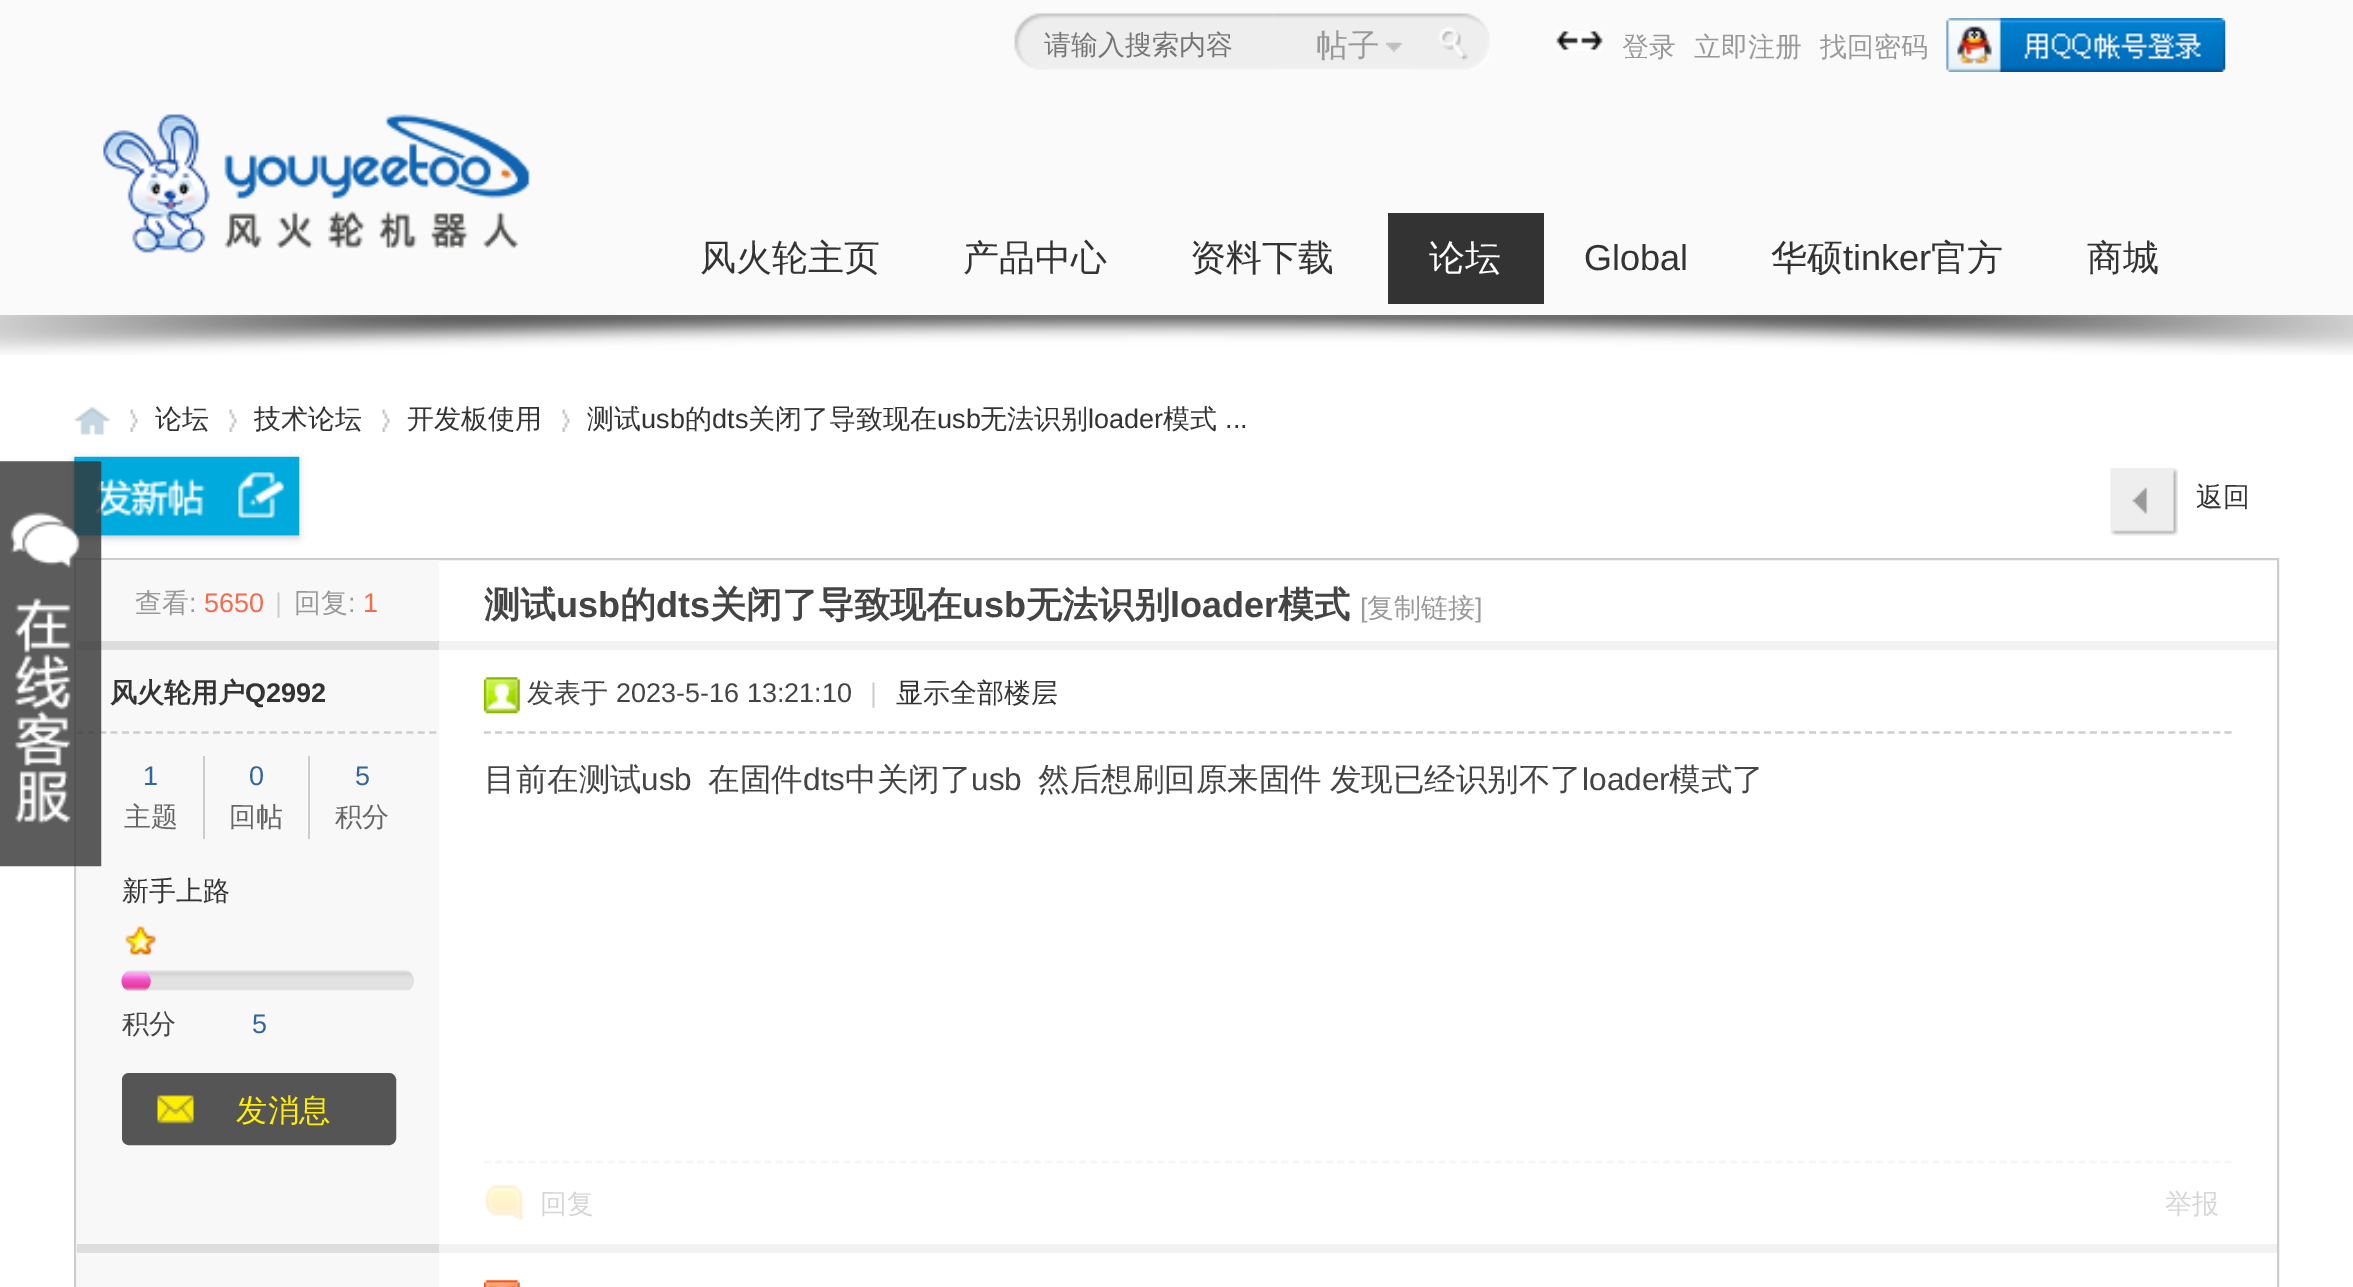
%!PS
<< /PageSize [2353 1287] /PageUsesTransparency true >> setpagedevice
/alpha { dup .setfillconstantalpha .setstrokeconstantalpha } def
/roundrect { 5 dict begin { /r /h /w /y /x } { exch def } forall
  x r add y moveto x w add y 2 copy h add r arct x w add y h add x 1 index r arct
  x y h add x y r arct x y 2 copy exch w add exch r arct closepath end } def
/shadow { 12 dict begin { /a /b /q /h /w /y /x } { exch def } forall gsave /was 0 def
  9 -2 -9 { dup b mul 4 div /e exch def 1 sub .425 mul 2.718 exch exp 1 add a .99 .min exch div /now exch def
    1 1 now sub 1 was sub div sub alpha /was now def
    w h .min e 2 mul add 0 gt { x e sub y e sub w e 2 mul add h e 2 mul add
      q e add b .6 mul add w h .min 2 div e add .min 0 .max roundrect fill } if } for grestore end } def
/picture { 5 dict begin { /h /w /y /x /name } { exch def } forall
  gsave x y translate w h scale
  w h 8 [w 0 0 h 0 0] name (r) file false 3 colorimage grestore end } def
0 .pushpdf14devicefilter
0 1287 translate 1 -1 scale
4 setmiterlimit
1 setgray
0 0 2353 1287 rectfill
0.98 setgray
0 0 2353 315 rectfill
(img1.rgb) 1014 13 260 57 picture
/WenQuanYiZenHei-Medium [27 0 0 -27 0 0] selectfont
0.459 setgray
1044 54 moveto (请输入搜索内容) show
(img2.rgb) 1273 13 140 56 picture
(img3.rgb) 1386 42 17 10 picture
/WenQuanYiZenHei-Medium [31.5 0 0 -31.5 0 0] selectfont
0.6 setgray
1316 56 moveto (帖子) show
(img4.rgb) 1413 13 77 57 picture
(img5.rgb) 1556 31 47 20 picture
/WenQuanYiZenHei-Medium [27 0 0 -27 0 0] selectfont
1622 56 moveto (登录) show
1694 56 moveto (立即注册) show
1820 56 moveto (找回密码) show
(img6.rgb) 1946 18 280 54 picture
(img7.rgb) 103 114 427 139 picture
/WenQuanYiZenHei-Medium [36 0 0 -36 0 0] selectfont
0.2 setgray
700 270 moveto (风火轮主页) show
963 270 moveto (产品中心) show
1190 270 moveto (资料下载) show
1388 213 156 91 rectfill
1 setgray
1429 270 moveto (论坛) show
/LiberationSans-Regular [36 0 0 -36 0 0] selectfont
0.2 setgray
1584 270 moveto (Global) show
/WenQuanYiZenHei-Medium [36 0 0 -36 0 0] selectfont
1771 270 moveto (华硕) show
/LiberationSans-Regular [36 0 0 -36 0 0] selectfont
1843 270 moveto (tinker) show
/WenQuanYiZenHei-Medium [36 0 0 -36 0 0] selectfont
1931 270 moveto (官方) show
2087 270 moveto (商城) show
(img8.rgb) 0 315 2353 40 picture
0.8 setgray
74 459 225 79 0 3.5 1 shadow
(img12.rgb) 74 456 226 80 picture
0.804 setgray
2 setlinewidth
75 559 2203 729 rectstroke
0.973 setgray
77 560 362 81 rectfill
0.867 setgray
77 641 362 9 rectfill
0.973 setgray
77 650 362 594 rectfill
gsave
77 650 360 511 rectclip
0.804 setgray
2.2 setlinewidth
[6.75 4.63] 0 setdash
newpath 76.5 732.5 moveto 436.5 732.5 lineto stroke
grestore
(img9.rgb) 0 461 102 406 picture
(img10.rgb) 74 406 37 29 picture
(img11.rgb) 130 409 8 23 picture
/WenQuanYiZenHei-Medium [27 0 0 -27 0 0] selectfont
0.2 setgray
155 428 moveto (论坛) show
(img11.rgb) 229 409 8 23 picture
254 428 moveto (技术论坛) show
(img11.rgb) 382 409 8 23 picture
407 428 moveto (开发板使用) show
(img11.rgb) 562 409 8 23 picture
587 428 moveto (测试) show
/LiberationSans-Regular [27 0 0 -27 0 0] selectfont
641 428 moveto (usb) show
/WenQuanYiZenHei-Medium [27 0 0 -27 0 0] selectfont
685 428 moveto (的) show
/LiberationSans-Regular [27 0 0 -27 0 0] selectfont
712 428 moveto (dts) show
/WenQuanYiZenHei-Medium [27 0 0 -27 0 0] selectfont
748 428 moveto (关闭了导致现在) show
/LiberationSans-Regular [27 0 0 -27 0 0] selectfont
937 428 moveto (usb) show
/WenQuanYiZenHei-Medium [27 0 0 -27 0 0] selectfont
980 428 moveto (无法识别) show
/LiberationSans-Regular [27 0 0 -27 0 0] selectfont
1088 428 moveto (loader) show
/WenQuanYiZenHei-Medium [27 0 0 -27 0 0] selectfont
1163 428 moveto (模式) show
/LiberationSans-Regular [27 0 0 -27 0 0] selectfont
1225 428 moveto (...) show
(img13.rgb) 2110 468 68 68 picture
/WenQuanYiZenHei-Medium [27 0 0 -27 0 0] selectfont
2196 506 moveto (返回) show
0.6 setgray
135 612 moveto (查看) show
/LiberationSans-Regular [27 0 0 -27 0 0] selectfont
189 612 moveto (:) show
0.949 0.424 0.31 setrgbcolor
204 612 moveto (5650) show
0.8 setgray
275 612 moveto (|) show
/WenQuanYiZenHei-Medium [27 0 0 -27 0 0] selectfont
0.6 setgray
294 612 moveto (回复) show
/LiberationSans-Regular [27 0 0 -27 0 0] selectfont
348 612 moveto (:) show
0.949 0.424 0.31 setrgbcolor
363 612 moveto (1) show
/WenQuanYiZenHei-Bold [36 0 0 -36 0 0] selectfont
0.267 setgray
484 617 moveto (测试) show
/LiberationSans-Bold [36 0 0 -36 0 0] selectfont
556 617 moveto (usb) show
/WenQuanYiZenHei-Bold [36 0 0 -36 0 0] selectfont
620 617 moveto (的) show
/LiberationSans-Bold [36 0 0 -36 0 0] selectfont
656 617 moveto (dts) show
/WenQuanYiZenHei-Bold [36 0 0 -36 0 0] selectfont
710 617 moveto (关闭了导致现在) show
/LiberationSans-Bold [36 0 0 -36 0 0] selectfont
962 617 moveto (usb) show
/WenQuanYiZenHei-Bold [36 0 0 -36 0 0] selectfont
1026 617 moveto (无法识别) show
/LiberationSans-Bold [36 0 0 -36 0 0] selectfont
1170 617 moveto (loader) show
/WenQuanYiZenHei-Bold [36 0 0 -36 0 0] selectfont
1278 617 moveto (模式) show
/LiberationSans-Regular [27 0 0 -27 0 0] selectfont
0.6 setgray
1360 617 moveto ([) show
/WenQuanYiZenHei-Medium [27 0 0 -27 0 0] selectfont
1367 617 moveto (复制链接) show
/LiberationSans-Regular [27 0 0 -27 0 0] selectfont
1475 617 moveto (]) show
0.949 setgray
439 641 1838 9 rectfill
/WenQuanYiZenHei-Bold [27 0 0 -27 0 0] selectfont
0.2 setgray
110 702 moveto (风火轮用户) show
/LiberationSans-Bold [27 0 0 -27 0 0] selectfont
245 702 moveto (Q2992) show
0.8 setgray
203 756 2 83 rectfill
/LiberationSans-Regular [27 0 0 -27 0 0] selectfont
0.2 0.4 0.6 setrgbcolor
143 785 moveto (1) show
/WenQuanYiZenHei-Medium [27 0 0 -27 0 0] selectfont
0.4 setgray
124 826 moveto (主题) show
0.8 setgray
308 756 2 83 rectfill
/LiberationSans-Regular [27 0 0 -27 0 0] selectfont
0.2 0.4 0.6 setrgbcolor
249 785 moveto (0) show
/WenQuanYiZenHei-Medium [27 0 0 -27 0 0] selectfont
0.4 setgray
229 826 moveto (回帖) show
/LiberationSans-Regular [27 0 0 -27 0 0] selectfont
0.2 0.4 0.6 setrgbcolor
355 785 moveto (5) show
/WenQuanYiZenHei-Medium [27 0 0 -27 0 0] selectfont
0.4 setgray
335 826 moveto (积分) show
0.2 setgray
122 900 moveto (新手上路) show
(img14.rgb) 125 926 31 29 picture
(img15.rgb) 121 970 293 21 picture
(img16.rgb) 121 971 30 20 picture
0.267 setgray
122 1033 moveto (积分) show
/LiberationSans-Regular [27 0 0 -27 0 0] selectfont
0.2 0.4 0.6 setrgbcolor
252 1033 moveto (5) show
0.333 setgray
123 1074 272 70 6 roundrect gsave fill grestore
stroke
(img17.rgb) 157 1095 37 29 picture
/WenQuanYiZenHei-Medium [31.5 0 0 -31.5 0 0] selectfont
1 0.933 0 setrgbcolor
236 1121 moveto (发消息) show
0.804 setgray
2.2 setlinewidth
[6.75 4.48] 0 setdash
newpath 484 732.5 moveto 2232 732.5 lineto stroke
(img18.rgb) 483 677 37 37 picture
/WenQuanYiZenHei-Medium [27 0 0 -27 0 0] selectfont
0.267 setgray
527 702 moveto (发表于) show
/LiberationSans-Regular [27 0 0 -27 0 0] selectfont
616 702 moveto (2023-5-16 13:21:10) show
0.8 setgray
870 702 moveto (|) show
/WenQuanYiZenHei-Medium [27 0 0 -27 0 0] selectfont
0.2 setgray
896 702 moveto (显示全部楼层) show
/WenQuanYiZenHei-Medium [31.5 0 0 -31.5 0 0] selectfont
0.267 setgray
484 790 moveto (目前在测试) show
/LiberationSans-Regular [31.5 0 0 -31.5 0 0] selectfont
641 790 moveto (usb) show
/WenQuanYiZenHei-Medium [31.5 0 0 -31.5 0 0] selectfont
708 790 moveto (在固件) show
/LiberationSans-Regular [31.5 0 0 -31.5 0 0] selectfont
803 790 moveto (dts) show
/WenQuanYiZenHei-Medium [31.5 0 0 -31.5 0 0] selectfont
845 790 moveto (中关闭了) show
/LiberationSans-Regular [31.5 0 0 -31.5 0 0] selectfont
971 790 moveto (usb) show
/WenQuanYiZenHei-Medium [31.5 0 0 -31.5 0 0] selectfont
1038 790 moveto -1 0 32 (然后想刷回原来固件 发现已经识别不了) widthshow
/LiberationSans-Regular [31.5 0 0 -31.5 0 0] selectfont
1582 790 moveto (loader) show
/WenQuanYiZenHei-Medium [31.5 0 0 -31.5 0 0] selectfont
1669 790 moveto (模式了) show
0.961 setgray
newpath 484 1162 moveto 2232 1162 lineto stroke
(img19.rgb) 485 1185 38 35 picture
/WenQuanYiZenHei-Medium [27 0 0 -27 0 0] selectfont
0.839 setgray
540 1213 moveto (回复) show
2165 1213 moveto (举报) show
0.867 setgray
77 1244 362 9 rectfill
0.949 setgray
439 1244 1838 9 rectfill
0.973 setgray
77 1253 362 34 rectfill
(img20.rgb) 483 1280 37 7 picture
.poppdf14devicefilter showpage
